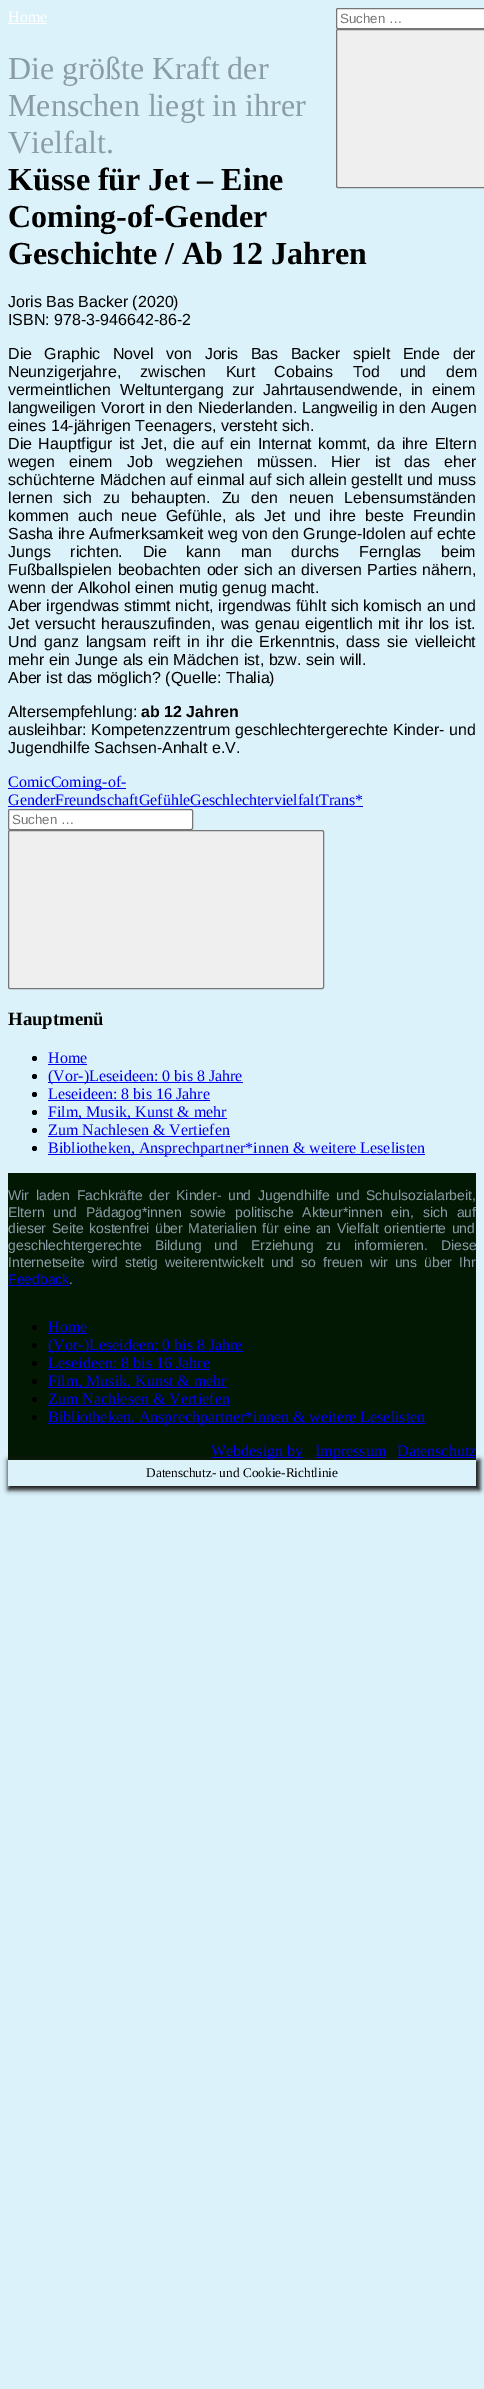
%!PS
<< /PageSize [484 2389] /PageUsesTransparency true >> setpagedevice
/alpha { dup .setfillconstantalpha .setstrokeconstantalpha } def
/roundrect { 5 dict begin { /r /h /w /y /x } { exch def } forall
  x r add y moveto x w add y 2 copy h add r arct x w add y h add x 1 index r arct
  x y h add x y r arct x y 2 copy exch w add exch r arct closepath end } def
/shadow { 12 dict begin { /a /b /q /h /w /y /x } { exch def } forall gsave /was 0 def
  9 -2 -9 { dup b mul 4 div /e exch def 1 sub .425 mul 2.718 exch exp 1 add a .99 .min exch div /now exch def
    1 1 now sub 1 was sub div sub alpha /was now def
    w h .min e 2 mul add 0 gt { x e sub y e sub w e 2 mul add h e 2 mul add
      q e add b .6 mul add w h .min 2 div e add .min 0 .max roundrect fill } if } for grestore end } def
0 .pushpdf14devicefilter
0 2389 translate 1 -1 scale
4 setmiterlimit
0.859 0.949 0.98 setrgbcolor
0 0 484 2389 rectfill
/LiberationSerif-Regular [16 0 0 -16 0 0] selectfont
1 setgray
8 22 moveto (Home) show
8 23 39 1 rectfill
/LiberationSerif-Regular [32 0 0 -32 0 0] selectfont
0.541 0.612 0.651 setrgbcolor
8 79 moveto (Die größte Kraft der) show
8 116 moveto (Menschen liegt in ihrer) show
8 153 moveto (Vielfalt.) show
1 setgray
336.5 8.5 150 20 1.5 roundrect gsave fill grestore
0.463 setgray
stroke
/LiberationSans-Regular [13.3 0 0 -13.3 0 0] selectfont
0.459 setgray
340 23 moveto (Suchen …) show
0.937 setgray
336.5 29.5 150 158 1.5 roundrect gsave fill grestore
0.463 setgray
stroke
/LiberationSerif-Bold [32 0 0 -32 0 0] selectfont
0 setgray
8 190 moveto (Küsse für Jet – Eine) show
8 227 moveto (Coming-of-Gender) show
8 264 moveto (Geschichte / Ab 12 Jahren) show
/LiberationSans-Regular [16 0 0 -16 0 0] selectfont
8 307 moveto (Joris Bas Backer \(2020\)) show
8 325 moveto (ISBN: 978-3-946642-86-2) show
8 359 moveto 8 0 32 (Die Graphic Novel von Joris Bas Backer spielt Ende der) widthshow
8 377 moveto 15 0 32 (Neunzigerjahre, zwischen Kurt Cobains Tod und dem) widthshow
8 395 moveto 4 0 32 (vermeintlichen Weltuntergang zur Jahrtausendwende, in einem) widthshow
8 413 moveto 0.25 0 32 (langweiligen Vorort in den Niederlanden. Langweilig in den Augen) widthshow
8 431 moveto (eines 14-jährigen Teenagers, versteht sich.) show
8 449 moveto 2 0 32 (Die Hauptfigur ist Jet, die auf ein Internat kommt, da ihre Eltern) widthshow
8 467 moveto 9.5 0 32 (wegen einem Job wegziehen müssen. Hier ist das eher) widthshow
8 485 moveto 0.25 0 32 (schüchterne Mädchen auf einmal auf sich allein gestellt und muss) widthshow
8 503 moveto 6.5 0 32 (lernen sich zu behaupten. Zu den neuen Lebensumständen) widthshow
8 521 moveto 4.25 0 32 (kommen auch neue Gefühle, als Jet und ihre beste Freundin) widthshow
8 539 moveto (Sasha ihre Aufmerksamkeit weg von den Grunge-Idolen auf echte) show
8 557 moveto 15.25 0 32 (Jungs richten. Die kann man durchs Fernglas beim) widthshow
8 575 moveto 1 0 32 (Fußballspielen beobachten oder sich an diversen Parties nähern,) widthshow
8 593 moveto (wenn der Alkohol einen mutig genug macht.) show
8 611 moveto 0.1 0 32 (Aber irgendwas stimmt nicht, irgendwas fühlt sich komisch an und) widthshow
8 629 moveto 1.25 0 32 (Jet versucht herauszufinden, was genau eigentlich mit ihr los ist.) widthshow
8 647 moveto 2.5 0 32 (Und ganz langsam reift in ihr die Erkenntnis, dass sie vielleicht) widthshow
8 665 moveto (mehr ein Junge als ein Mädchen ist, bzw. sein will.) show
8 683 moveto (Aber ist das möglich? \(Quelle: Thalia\)) show
8 717 moveto (Altersempfehlung:) show
/LiberationSans-Bold [16 0 0 -16 0 0] selectfont
141 717 moveto (ab 12 Jahren) show
/LiberationSans-Regular [16 0 0 -16 0 0] selectfont
8 735 moveto 0.5 0 32 (ausleihbar: Kompetenzzentrum geschlechtergerechte Kinder- und) widthshow
8 753 moveto (Jugendhilfe Sachsen-Anhalt e.V.) show
0 0 0.933 setrgbcolor
8 788 118 1 rectfill
/LiberationSerif-Regular [16 0 0 -16 0 0] selectfont
8 787 moveto (ComicComing-of-) show
8 805 moveto (GenderFreundschaftGefühleGeschlechtervielfaltTrans*) show
8 806 355 1 rectfill
1 setgray
8.5 809.5 184 20 1.5 roundrect gsave fill grestore
0.463 setgray
stroke
/LiberationSans-Regular [13.3 0 0 -13.3 0 0] selectfont
0.459 setgray
12 824 moveto (Suchen …) show
0.937 setgray
8.5 830.5 315 158 1.5 roundrect gsave fill grestore
0.463 setgray
stroke
/LiberationSerif-Bold [18.75 0 0 -18.75 0 0] selectfont
0 setgray
8 1025 moveto (Hauptmenü) show
newpath 34.5 1058.5 2.5 0 360 arc closepath fill
/LiberationSerif-Regular [16 0 0 -16 0 0] selectfont
0 0 0.933 setrgbcolor
48 1063 moveto (Home) show
48 1064 39 1 rectfill
0 setgray
newpath 34.5 1076.5 2.5 0 360 arc closepath fill
0 0 0.933 setrgbcolor
48 1082 195 1 rectfill
48 1081 moveto (\(Vor-\)Leseideen: 0 bis 8 Jahre) show
0 setgray
newpath 34.5 1094.5 2.5 0 360 arc closepath fill
0 0 0.933 setrgbcolor
48 1099 moveto (Leseideen: 8 bis 16 Jahre) show
48 1100 162 1 rectfill
0 setgray
newpath 34.5 1112.5 2.5 0 360 arc closepath fill
0 0 0.933 setrgbcolor
48 1118 179 1 rectfill
48 1117 moveto (Film, Musik, Kunst & mehr) show
0 setgray
newpath 34.5 1130.5 2.5 0 360 arc closepath fill
0 0 0.933 setrgbcolor
48 1135 moveto (Zum Nachlesen & Vertiefen) show
48 1136 182 1 rectfill
0 setgray
newpath 34.5 1148.5 2.5 0 360 arc closepath fill
0 0 0.933 setrgbcolor
48 1154 377 1 rectfill
48 1153 moveto (Bibliotheken, Ansprechpartner*innen & weitere Leselisten) show
0.012 0.094 0.012 setrgbcolor
8 1173 468 287 rectfill
/LiberationSans-Regular [14 0 0 -14 0 0] selectfont
0.541 0.612 0.651 setrgbcolor
8 1200 moveto 2.75 0 32 (Wir laden Fachkräfte der Kinder- und Jugendhilfe und Schulsozialarbeit,) widthshow
8 1217 moveto 5 0 32 (Eltern und Pädagog*innen sowie politische Akteur*innen ein, sich auf) widthshow
8 1233 moveto 1.5 0 32 (dieser Seite kostenfrei über Materialien für eine an Vielfalt orientierte und) widthshow
8 1250 moveto 9 0 32 (geschlechtergerechte Bildung und Erziehung zu informieren. Diese) widthshow
8 1267 moveto 3.1 0 32 (Internetseite wird stetig weiterentwickelt und so freuen wir uns über Ihr) widthshow
0 0 0.933 setrgbcolor
8 1284 moveto (Feedback) show
8 1285 61 1 rectfill
0.541 0.612 0.651 setrgbcolor
69 1284 moveto (.) show
0 setgray
newpath 34.5 1327.5 2.5 0 360 arc closepath fill
/LiberationSerif-Regular [16 0 0 -16 0 0] selectfont
0 0 0.933 setrgbcolor
48 1332 moveto (Home) show
48 1333 39 1 rectfill
0 setgray
newpath 34.5 1345.5 2.5 0 360 arc closepath fill
0 0 0.933 setrgbcolor
48 1351 195 1 rectfill
48 1350 moveto (\(Vor-\)Leseideen: 0 bis 8 Jahre) show
0 setgray
newpath 34.5 1363.5 2.5 0 360 arc closepath fill
0 0 0.933 setrgbcolor
48 1368 moveto (Leseideen: 8 bis 16 Jahre) show
48 1369 162 1 rectfill
0 setgray
newpath 34.5 1381.5 2.5 0 360 arc closepath fill
0 0 0.933 setrgbcolor
48 1387 179 1 rectfill
48 1386 moveto (Film, Musik, Kunst & mehr) show
0 setgray
newpath 34.5 1399.5 2.5 0 360 arc closepath fill
0 0 0.933 setrgbcolor
48 1404 moveto (Zum Nachlesen & Vertiefen) show
48 1405 182 1 rectfill
0 setgray
newpath 34.5 1417.5 2.5 0 360 arc closepath fill
0 0 0.933 setrgbcolor
48 1423 377 1 rectfill
48 1422 moveto (Bibliotheken, Ansprechpartner*innen & weitere Leselisten) show
gsave
newpath 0 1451 moveto 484 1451 lineto 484 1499 lineto 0 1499 lineto closepath 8 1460 moveto 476 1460 lineto 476 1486 lineto 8 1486 lineto closepath eoclip newpath
0.086 setgray
8 1460 472 30 0 2.5 1 shadow
grestore
211 1457 92 1 rectfill
211 1456 moveto (Webdesign by) show
315 1457 71 1 rectfill
315 1456 moveto (Impressum) show
397 1456 moveto (Datenschutz) show
397 1457 79 1 rectfill
/LiberationSerif-Regular [13.3 0 0 -13.3 0 0] selectfont
0 setgray
146 1477 moveto (Datenschutz- und Cookie-Richtlinie) show
.poppdf14devicefilter showpage
